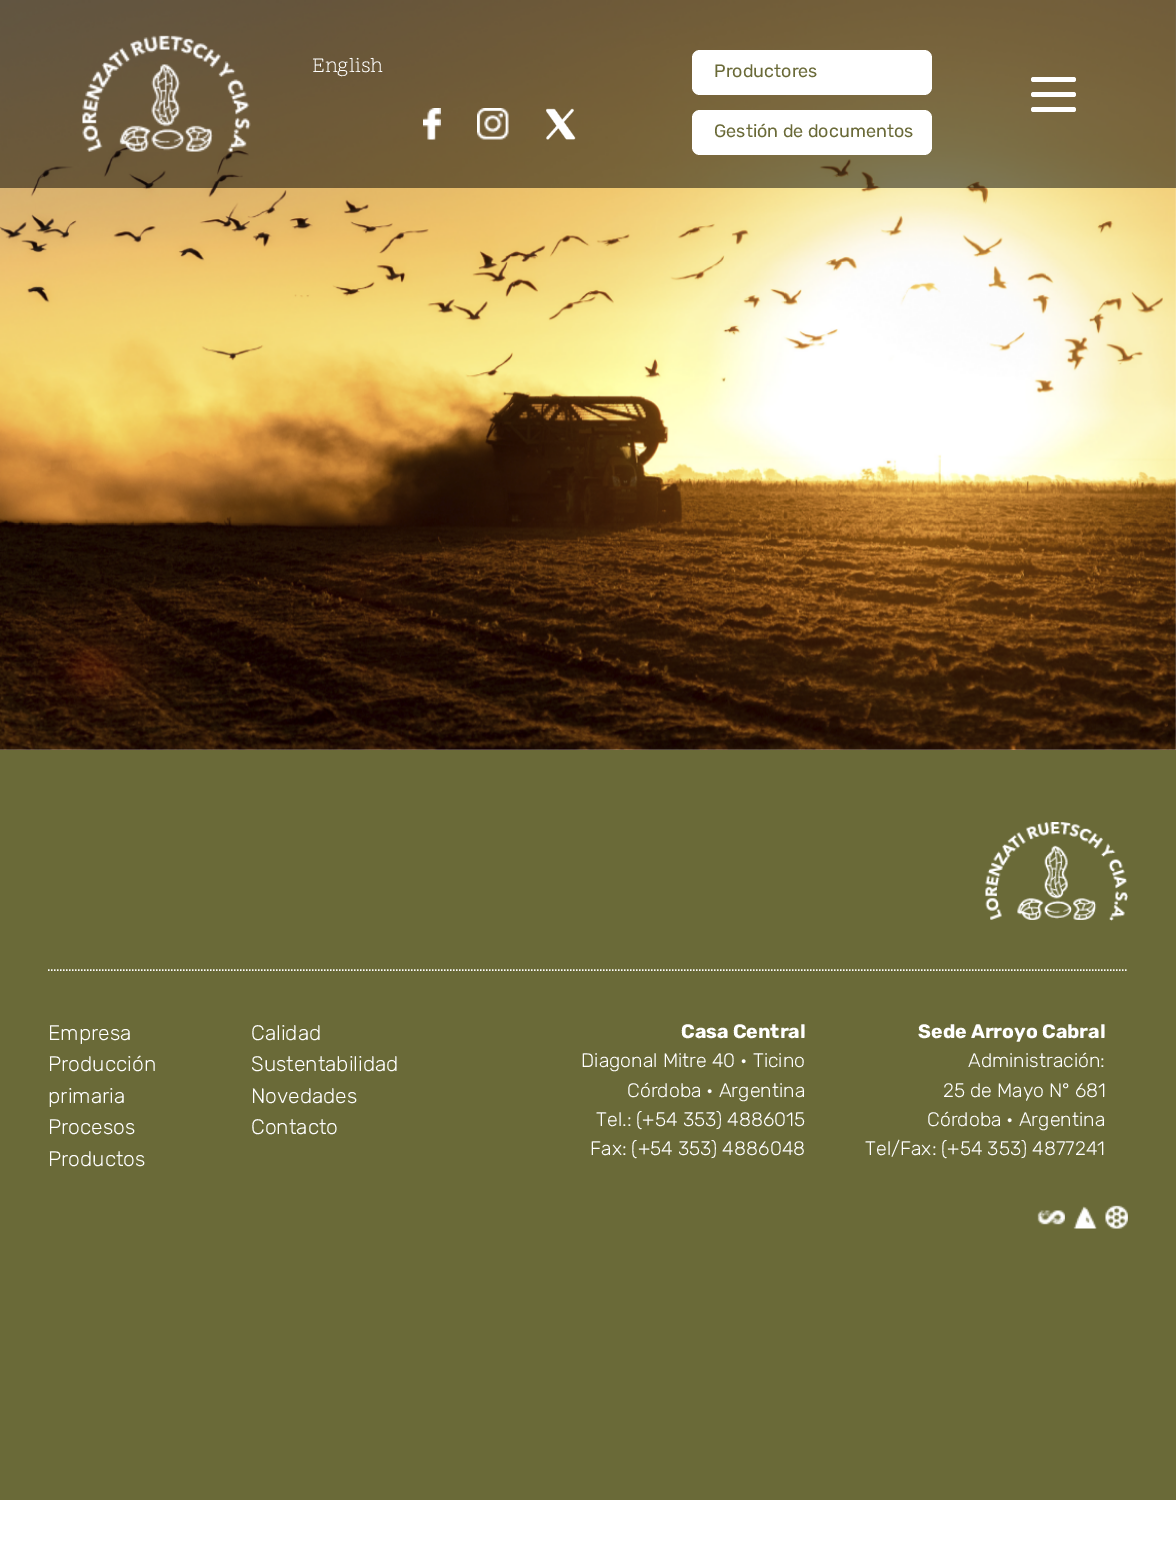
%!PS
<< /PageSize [1176 1563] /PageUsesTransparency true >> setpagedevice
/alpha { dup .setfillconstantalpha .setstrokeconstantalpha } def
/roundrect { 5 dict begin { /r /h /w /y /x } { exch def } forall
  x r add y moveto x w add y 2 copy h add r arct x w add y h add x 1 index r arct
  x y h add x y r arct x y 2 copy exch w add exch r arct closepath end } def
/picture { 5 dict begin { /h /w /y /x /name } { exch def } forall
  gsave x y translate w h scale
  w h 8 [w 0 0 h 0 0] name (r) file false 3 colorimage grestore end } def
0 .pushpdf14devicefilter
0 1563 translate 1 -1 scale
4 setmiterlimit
1 setgray
0 0 1176 1563 rectfill
(img1.rgb) 0 0 1176 750 picture
0.5 alpha
0.012 setgray
0 0 1176 188 rectfill
1 alpha
(img2.rgb) 82 35 169 117 picture
/ScopeOne-Regular [21 0 0 -21 0 0] selectfont
1 setgray
312 72 moveto (English) show
(img3.rgb) 423 108 18 32 picture
(img4.rgb) 477 108 32 32 picture
(img5.rgb) 546 108 30 32 picture
692 50 240 45 8 roundrect fill
/Rubik-Regular [18 0 0 -18 0 0] selectfont
0.416 0.416 0.22 setrgbcolor
714 77 moveto (Productores) show
1 setgray
692 110 240 45 8 roundrect fill
0.416 0.416 0.22 setrgbcolor
714 137 moveto (Gestión de documentos) show
1 setgray
1031 77 45 5 2.5 roundrect fill
1031 92 45 5 2.5 roundrect fill
1031 107 45 5 2.5 roundrect fill
0.416 0.416 0.22 setrgbcolor
0 750 1176 750 rectfill
(img6.rgb) 985 822 143 99 picture
1 setgray
1.5 setlinewidth
[1.5 1.5] 0 setdash
newpath 48 970 moveto 1128 970 lineto stroke
/Rubik-Light [21 0 0 -21 0 0] selectfont
48 1040 moveto (Empresa) show
48 1071 moveto (Producción) show
48 1103 moveto (primaria) show
48 1134 moveto (Procesos) show
48 1166 moveto (Productos) show
251 1040 moveto (Calidad) show
251 1071 moveto (Sustentabilidad) show
251 1103 moveto (Novedades) show
251 1134 moveto (Contacto) show
/Rubik-Bold [19.5 0 0 -19.5 0 0] selectfont
681 1038 moveto (Casa Central) show
/Rubik-Light [19.5 0 0 -19.5 0 0] selectfont
581 1067 moveto (Diagonal Mitre 40 • Ticino) show
627 1097 moveto (Córdoba • Argentina) show
596 1126 moveto (Tel.: \(+54 353\) 4886015) show
590 1155 moveto (Fax: \(+54 353\) 4886048) show
/Rubik-Bold [19.5 0 0 -19.5 0 0] selectfont
918 1038 moveto (Sede Arroyo Cabral) show
/Rubik-Light [19.5 0 0 -19.5 0 0] selectfont
968 1067 moveto (Administración:) show
943 1097 moveto (25 de Mayo N° 681) show
927 1126 moveto (Córdoba • Argentina) show
865 1155 moveto (Tel/Fax: \(+54 353\) 4877241) show
(img7.rgb) 1037 1210 28 15 picture
(img8.rgb) 1073 1206 24 23 picture
(img9.rgb) 1105 1205 23 24 picture
.poppdf14devicefilter showpage
